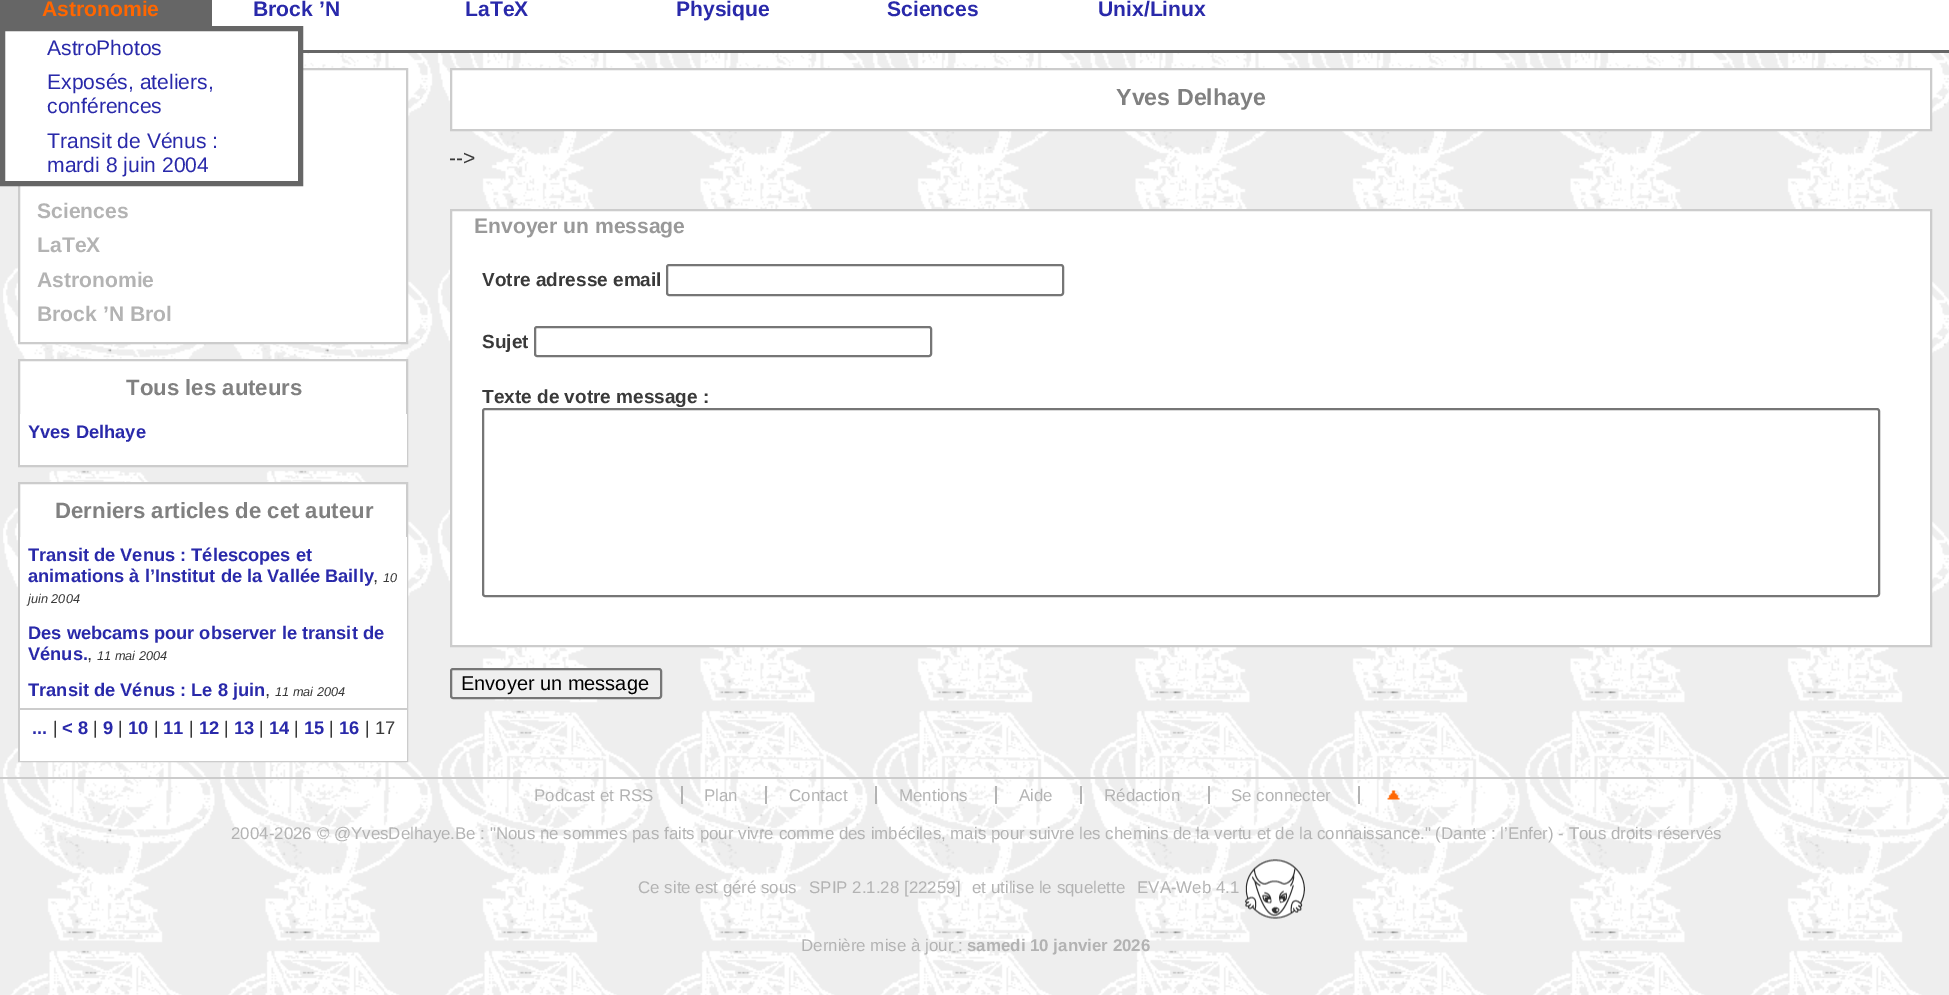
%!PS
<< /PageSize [1949 995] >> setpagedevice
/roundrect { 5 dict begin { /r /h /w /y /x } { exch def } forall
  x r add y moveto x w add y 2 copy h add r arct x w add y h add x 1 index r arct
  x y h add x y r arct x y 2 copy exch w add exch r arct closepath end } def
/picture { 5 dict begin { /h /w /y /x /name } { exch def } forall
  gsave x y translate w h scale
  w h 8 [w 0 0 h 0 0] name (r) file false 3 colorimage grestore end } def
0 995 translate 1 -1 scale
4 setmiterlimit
0.933 setgray
0 0 1949 995 rectfill
(img1.rgb) 3 53 1946 942 picture
1 setgray
212 0 1737 50 rectfill
0.4 setgray
303 50 1646 3 rectfill
0 0 212 26 rectfill
/LiberationSans-Bold [21.1 0 0 -21.1 0 0] selectfont
1 0.4 0 setrgbcolor
42 16 moveto (Astronomie) show
1 setgray
newpath 19 69 moveto 407 69 lineto 407 343 lineto 19 343 lineto closepath gsave fill grestore
0.8 setgray
2 setlinewidth
stroke
1 setgray
newpath 2.5 28.5 moveto 300.5 28.5 lineto 300.5 183.5 lineto 2.5 183.5 lineto closepath gsave fill grestore
0.4 setgray
5 setlinewidth
stroke
/LiberationSans-Regular [21.1 0 0 -21.1 0 0] selectfont
0.161 0.161 0.667 setrgbcolor
47 55 moveto (AstroPhotos) show
47 89 moveto (Exposés, ateliers,) show
47 113 moveto (conférences) show
47 148 moveto (Transit de Vénus :) show
47 172 moveto (mardi 8 juin 2004) show
/LiberationSans-Bold [21.1 0 0 -21.1 0 0] selectfont
253 16 moveto (Brock ’N) show
465 16 moveto (LaTeX) show
676 16 moveto (Physique) show
887 16 moveto (Sciences) show
1098 16 moveto (Unix/Linux) show
0.702 setgray
37 218 moveto (Sciences) show
37 252 moveto (LaTeX) show
37 287 moveto (Astronomie) show
37 321 moveto (Brock ’N Brol) show
1 setgray
20 361 386 53 rectfill
0.8 setgray
2 setlinewidth
19 360 388 106 rectstroke
/LiberationSans-Bold [22.2 0 0 -22.2 0 0] selectfont
0.502 setgray
126 395 moveto (Tous les auteurs) show
1 setgray
20 414 387 51 rectfill
/LiberationSans-Bold [18.25 0 0 -18.25 0 0] selectfont
0.161 0.161 0.667 setrgbcolor
28 438 moveto (Yves Delhaye) show
1 setgray
20 484 386 53 rectfill
0.8 setgray
19 483 388 278 rectstroke
/LiberationSans-Bold [22.2 0 0 -22.2 0 0] selectfont
0.502 setgray
55 518 moveto (Derniers articles de cet auteur) show
1 setgray
20 537 387 224 rectfill
/LiberationSans-Bold [18.25 0 0 -18.25 0 0] selectfont
0.161 0.161 0.667 setrgbcolor
28 561 moveto (Transit de Venus : Télescopes et) show
28 582 moveto (animations à l’Institut de la Vallée Bailly) show
/LiberationSans-Regular [18.25 0 0 -18.25 0 0] selectfont
0.224 setgray
373 582 moveto (,) show
/LiberationSans-Italic [12.75 0 0 -12.75 0 0] selectfont
383 582 moveto (10) show
28 603 moveto (juin 2004) show
/LiberationSans-Bold [18.25 0 0 -18.25 0 0] selectfont
0.161 0.161 0.667 setrgbcolor
28 639 moveto (Des webcams pour observer le transit de) show
28 660 moveto (Vénus.) show
/LiberationSans-Regular [18.25 0 0 -18.25 0 0] selectfont
0.224 setgray
87 660 moveto (,) show
/LiberationSans-Italic [12.75 0 0 -12.75 0 0] selectfont
97 660 moveto (11 mai 2004) show
/LiberationSans-Bold [18.25 0 0 -18.25 0 0] selectfont
0.161 0.161 0.667 setrgbcolor
28 696 moveto (Transit de Vénus : Le 8 juin) show
/LiberationSans-Regular [18.25 0 0 -18.25 0 0] selectfont
0.224 setgray
265 696 moveto (,) show
/LiberationSans-Italic [12.75 0 0 -12.75 0 0] selectfont
275 696 moveto (11 mai 2004) show
0.8 setgray
20 708 387 2 rectfill
/LiberationSans-Bold [18.25 0 0 -18.25 0 0] selectfont
0.161 0.161 0.667 setrgbcolor
32 734 moveto (...) show
/LiberationSans-Regular [18.25 0 0 -18.25 0 0] selectfont
0.224 setgray
53 734 moveto (|) show
/LiberationSans-Bold [18.25 0 0 -18.25 0 0] selectfont
0.161 0.161 0.667 setrgbcolor
62 734 moveto (< 8) show
/LiberationSans-Regular [18.25 0 0 -18.25 0 0] selectfont
0.224 setgray
93 734 moveto (|) show
/LiberationSans-Bold [18.25 0 0 -18.25 0 0] selectfont
0.161 0.161 0.667 setrgbcolor
103 734 moveto (9) show
/LiberationSans-Regular [18.25 0 0 -18.25 0 0] selectfont
0.224 setgray
118 734 moveto (|) show
/LiberationSans-Bold [18.25 0 0 -18.25 0 0] selectfont
0.161 0.161 0.667 setrgbcolor
128 734 moveto (10) show
/LiberationSans-Regular [18.25 0 0 -18.25 0 0] selectfont
0.224 setgray
154 734 moveto (|) show
/LiberationSans-Bold [18.25 0 0 -18.25 0 0] selectfont
0.161 0.161 0.667 setrgbcolor
163 734 moveto (11) show
/LiberationSans-Regular [18.25 0 0 -18.25 0 0] selectfont
0.224 setgray
189 734 moveto (|) show
/LiberationSans-Bold [18.25 0 0 -18.25 0 0] selectfont
0.161 0.161 0.667 setrgbcolor
199 734 moveto (12) show
/LiberationSans-Regular [18.25 0 0 -18.25 0 0] selectfont
0.224 setgray
224 734 moveto (|) show
/LiberationSans-Bold [18.25 0 0 -18.25 0 0] selectfont
0.161 0.161 0.667 setrgbcolor
234 734 moveto (13) show
/LiberationSans-Regular [18.25 0 0 -18.25 0 0] selectfont
0.224 setgray
259 734 moveto (|) show
/LiberationSans-Bold [18.25 0 0 -18.25 0 0] selectfont
0.161 0.161 0.667 setrgbcolor
269 734 moveto (14) show
/LiberationSans-Regular [18.25 0 0 -18.25 0 0] selectfont
0.224 setgray
294 734 moveto (|) show
/LiberationSans-Bold [18.25 0 0 -18.25 0 0] selectfont
0.161 0.161 0.667 setrgbcolor
304 734 moveto (15) show
/LiberationSans-Regular [18.25 0 0 -18.25 0 0] selectfont
0.224 setgray
329 734 moveto (|) show
/LiberationSans-Bold [18.25 0 0 -18.25 0 0] selectfont
0.161 0.161 0.667 setrgbcolor
339 734 moveto (16) show
/LiberationSans-Regular [18.25 0 0 -18.25 0 0] selectfont
0.224 setgray
365 734 moveto (| 17) show
1 setgray
newpath 451 69 moveto 1931 69 lineto 1931 130 lineto 451 130 lineto closepath gsave fill grestore
0.8 setgray
stroke
/LiberationSans-Bold [23.25 0 0 -23.25 0 0] selectfont
0.502 setgray
1116 105 moveto (Yves Delhaye) show
/LiberationSans-Regular [21.1 0 0 -21.1 0 0] selectfont
0.224 setgray
449 165 moveto (-->) show
1 setgray
newpath 451 210 moveto 1931 210 lineto 1931 646 lineto 451 646 lineto closepath gsave fill grestore
0.8 setgray
stroke
/LiberationSans-Bold [21.1 0 0 -21.1 0 0] selectfont
0.6 setgray
474 233 moveto (Envoyer un message) show
/LiberationSans-Bold [19 0 0 -19 0 0] selectfont
0.224 setgray
482 286 moveto (Votre adresse email) show
0.463 setgray
667 265 396 30 2 roundrect stroke
0.224 setgray
482 348 moveto (Sujet) show
0.463 setgray
535 327 396 29 2 roundrect stroke
0.224 setgray
482 403 moveto (Texte de votre message :) show
0.463 setgray
483 409 1396 187 2 roundrect stroke
0.937 setgray
451 669 210 29 2 roundrect gsave fill grestore
0.463 setgray
stroke
/LiberationSans-Regular [20 0 0 -20 0 0] selectfont
0 setgray
461 690 moveto (Envoyer un message) show
0.8 setgray
0 777 1949 2 rectfill
/LiberationSans-Regular [16.9 0 0 -16.9 0 0] selectfont
0.702 setgray
534 801 moveto (Podcast et RSS) show
704 801 moveto (Plan) show
681 786 2 18 rectfill
789 801 moveto (Contact) show
765 786 2 18 rectfill
899 801 moveto (Mentions) show
875 786 2 18 rectfill
1019 801 moveto (Aide) show
995 786 2 18 rectfill
1104 801 moveto (Rédaction) show
1080 786 2 18 rectfill
1231 801 moveto (Se connecter) show
1208 786 2 18 rectfill
1358 786 2 18 rectfill
(img2.rgb) 1387 790 13 10 picture
231 839 moveto (2004-2026 © @YvesDelhaye.Be : "Nous ne sommes pas faits pour vivre comme des imbéciles, mais pour suivre les chemins de la vertu et de la connaissance." \(Dante : l’Enfer\) - Tous droits réservés) show
638 893 moveto (Ce site est géré sous) show
809 893 moveto (SPIP 2.1.28 [22259]) show
972 893 moveto (et utilise le squelette) show
1137 893 moveto (EVA-Web 4.1) show
(img3.rgb) 1245 859 60 60 picture
801 951 moveto (Dernière mise à jour :) show
/LiberationSans-Bold [16.9 0 0 -16.9 0 0] selectfont
967 951 moveto (samedi 10 janvier 2026) show
showpage
